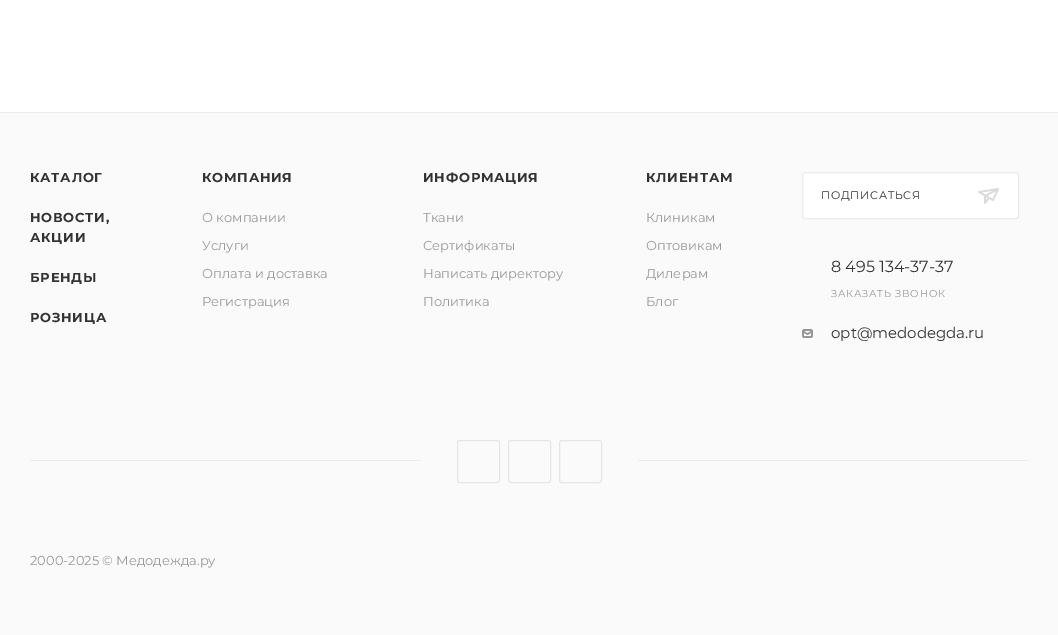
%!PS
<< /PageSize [1058 635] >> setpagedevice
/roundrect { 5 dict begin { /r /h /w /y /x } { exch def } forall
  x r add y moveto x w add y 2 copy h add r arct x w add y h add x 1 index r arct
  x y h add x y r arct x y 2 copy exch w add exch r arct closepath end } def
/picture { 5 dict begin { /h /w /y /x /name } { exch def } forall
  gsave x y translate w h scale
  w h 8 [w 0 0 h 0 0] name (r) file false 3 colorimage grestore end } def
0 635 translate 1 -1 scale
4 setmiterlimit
1 setgray
0 0 1058 635 rectfill
0.98 setgray
0 113 1058 522 rectfill
0.925 setgray
0 112 1058 1 rectfill
/Montserrat-Bold [13 0 0 -13 0 0] selectfont
0.2 setgray
30 182 moveto 0.75 0 (КАТАЛОГ) ashow
30 222 moveto 0.75 0 (НОВОСТИ,) ashow
30 242 moveto 0.75 0 (АКЦИИ) ashow
30 282 moveto 0.75 0 (БРЕНДЫ) ashow
30 322 moveto 0.75 0 (РОЗНИЦА) ashow
202 182 moveto 0.75 0 (КОМПАНИЯ) ashow
/Montserrat-Regular [13 0 0 -13 0 0] selectfont
0.6 setgray
202 222 moveto (О компании) show
202 250 moveto (Услуги) show
202 278 moveto (Оплата и доставка) show
202 306 moveto (Регистрация) show
/Montserrat-Bold [13 0 0 -13 0 0] selectfont
0.2 setgray
423 182 moveto 0.75 0 (ИНФОРМАЦИЯ) ashow
/Montserrat-Regular [13 0 0 -13 0 0] selectfont
0.6 setgray
423 222 moveto (Ткани) show
423 250 moveto (Сертификаты) show
423 278 moveto (Написать директору) show
423 306 moveto (Политика) show
/Montserrat-Bold [13 0 0 -13 0 0] selectfont
0.2 setgray
646 182 moveto 0.75 0 (КЛИЕНТАМ) ashow
/Montserrat-Regular [13 0 0 -13 0 0] selectfont
0.6 setgray
646 222 moveto (Клиникам) show
646 250 moveto (Оптовикам) show
646 278 moveto (Дилерам) show
646 306 moveto (Блог) show
1 setgray
802.5 172.5 216 46 2.5 roundrect gsave fill grestore
0.925 setgray
stroke
/Montserrat-Regular [11 0 0 -11 0 0] selectfont
0.2 setgray
821 199 moveto 0.75 0 (ПОДПИСАТЬСЯ) ashow
(img1.rgb) 978 188 21 16 picture
/Montserrat-Regular [16 0 0 -16 0 0] selectfont
831 272 moveto (8 495 134-37-37) show
/Montserrat-Regular [10 0 0 -10 0 0] selectfont
0.6 setgray
831 297 moveto 0.75 0 (ЗАКАЗАТЬ ЗВОНОК) ashow
(img2.rgb) 802 329 11 9 picture
/Montserrat-Regular [15 0 0 -15 0 0] selectfont
0.2 setgray
831 338 moveto (opt@medodegda.ru) show
0.925 setgray
30 460 998 1 rectfill
0.98 setgray
421 460 217 1 rectfill
0.902 setgray
457.5 440.5 42 42 2.5 roundrect stroke
508.5 440.5 42 42 2.5 roundrect stroke
559.5 440.5 42 42 2.5 roundrect stroke
/Montserrat-Regular [13 0 0 -13 0 0] selectfont
0.6 setgray
30 565 moveto (2000-2025 © Медодежда.ру) show
showpage
